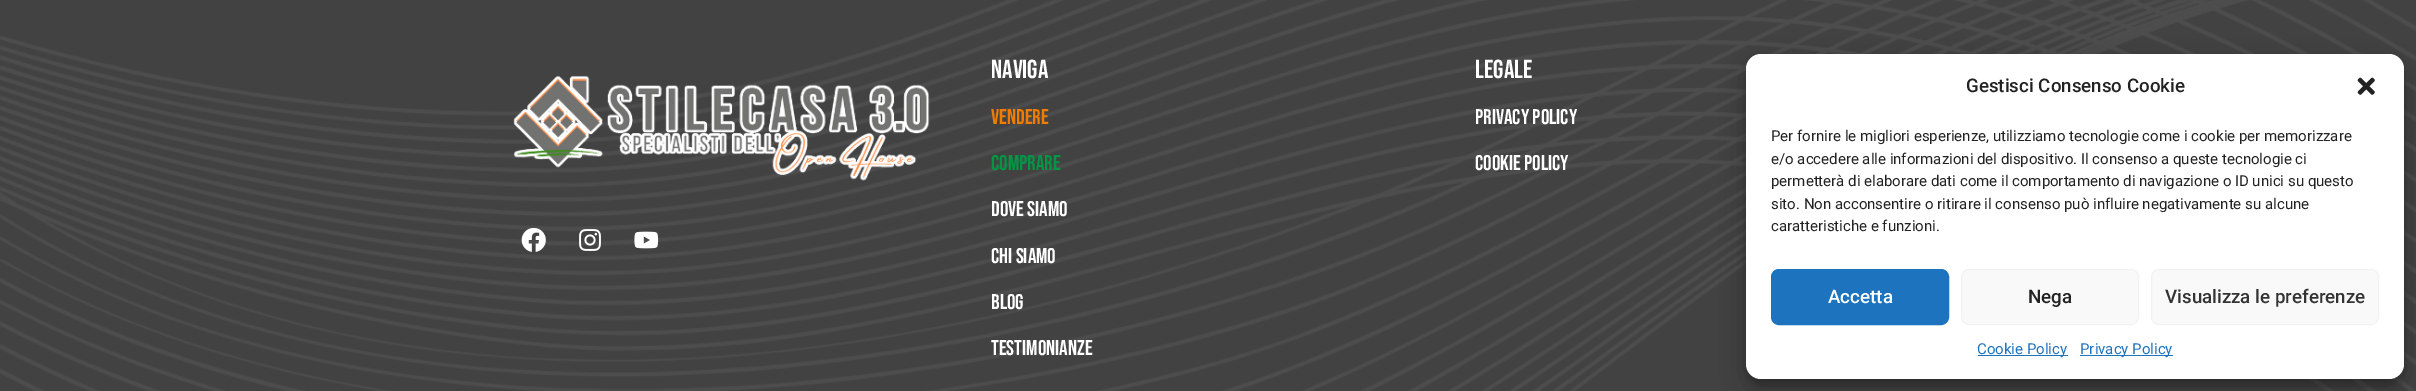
%!PS
<< /PageSize [2416 391] /PageUsesTransparency true >> setpagedevice
/alpha { dup .setfillconstantalpha .setstrokeconstantalpha } def
/roundrect { 5 dict begin { /r /h /w /y /x } { exch def } forall
  x r add y moveto x w add y 2 copy h add r arct x w add y h add x 1 index r arct
  x y h add x y r arct x y 2 copy exch w add exch r arct closepath end } def
/shadow { 12 dict begin { /a /b /q /h /w /y /x } { exch def } forall gsave /was 0 def
  9 -2 -9 { dup b mul 4 div /e exch def 1 sub .425 mul 2.718 exch exp 1 add a .99 .min exch div /now exch def
    1 1 now sub 1 was sub div sub alpha /was now def
    w h .min e 2 mul add 0 gt { x e sub y e sub w e 2 mul add h e 2 mul add
      q e add b .6 mul add w h .min 2 div e add .min 0 .max roundrect fill } if } for grestore end } def
/picture { 5 dict begin { /h /w /y /x /name } { exch def } forall
  gsave x y translate w h scale
  w h 8 [w 0 0 h 0 0] name (r) file false 3 colorimage grestore end } def
0 .pushpdf14devicefilter
0 391 translate 1 -1 scale
4 setmiterlimit
0.259 setgray
0 0 2416 391 rectfill
(img1.rgb) 0 0 2416 391 picture
(img2.rgb) 513 75 417 106 picture
(img3.rgb) 521 228 25 24 picture
(img4.rgb) 579 229 22 22 picture
(img5.rgb) 634 231 25 18 picture
/BebasNeue-Regular [26 0 0 -26 0 0] selectfont
1 setgray
991 78 moveto (Naviga) show
/BebasNeue-Regular [21.25 0 0 -21.25 0 0] selectfont
0.941 0.49 0 setrgbcolor
991 124 moveto (Vendere) show
0 0.588 0.267 setrgbcolor
991 170 moveto (Comprare) show
1 setgray
991 216 moveto (Dove Siamo) show
991 263 moveto (Chi Siamo) show
991 309 moveto (Blog) show
991 355 moveto (Testimonianze) show
/BebasNeue-Regular [26 0 0 -26 0 0] selectfont
1475 78 moveto (Legale) show
/BebasNeue-Regular [21.25 0 0 -21.25 0 0] selectfont
1475 124 moveto (Privacy Policy) show
1475 170 moveto (Cookie Policy) show
0 setgray
1746 61 658 325 15 4 0.23 shadow
1746 66 658 325 15 12.5 0.19 shadow
1 setgray
1746 54 658 325 15 roundrect fill
/Roboto-Medium [18.75 0 0 -18.75 0 0] selectfont
0.133 setgray
1966 92 moveto (Gestisci Consenso Cookie) show
(img6.rgb) 2357 77 18 18 picture
/Roboto-Regular [15 0 0 -15 0 0] selectfont
1771 141 moveto (Per fornire le migliori esperienze, utilizziamo tecnologie come i cookie per memorizzare) show
1771 164 moveto (e/o accedere alle informazioni del dispositivo. Il consenso a queste tecnologie ci) show
1771 186 moveto (permetterà di elaborare dati come il comportamento di navigazione o ID unici su questo) show
1771 209 moveto (sito. Non acconsentire o ritirare il consenso può influire negativamente su alcune) show
1771 231 moveto (caratteristiche e funzioni.) show
0.118 0.451 0.745 setrgbcolor
1771.5 269.5 177 55 7.5 roundrect gsave fill grestore
stroke
/Roboto-Medium [18.75 0 0 -18.75 0 0] selectfont
1 setgray
1828 303 moveto (Accetta) show
0.976 setgray
1961.5 269.5 177 55 7.5 roundrect gsave fill grestore
0.949 setgray
stroke
0.133 setgray
2028 303 moveto (Nega) show
0.976 setgray
2151.5 269.5 227 55 7.5 roundrect gsave fill grestore
0.949 setgray
stroke
0.2 setgray
2165 303 moveto (Visualizza le preferenze) show
0.118 0.451 0.745 setrgbcolor
1978 355 90 1 rectfill
/Roboto-Regular [15 0 0 -15 0 0] selectfont
1977 354 moveto (Cookie Policy) show
2080 355 93 1 rectfill
2080 354 moveto (Privacy Policy) show
.poppdf14devicefilter showpage
